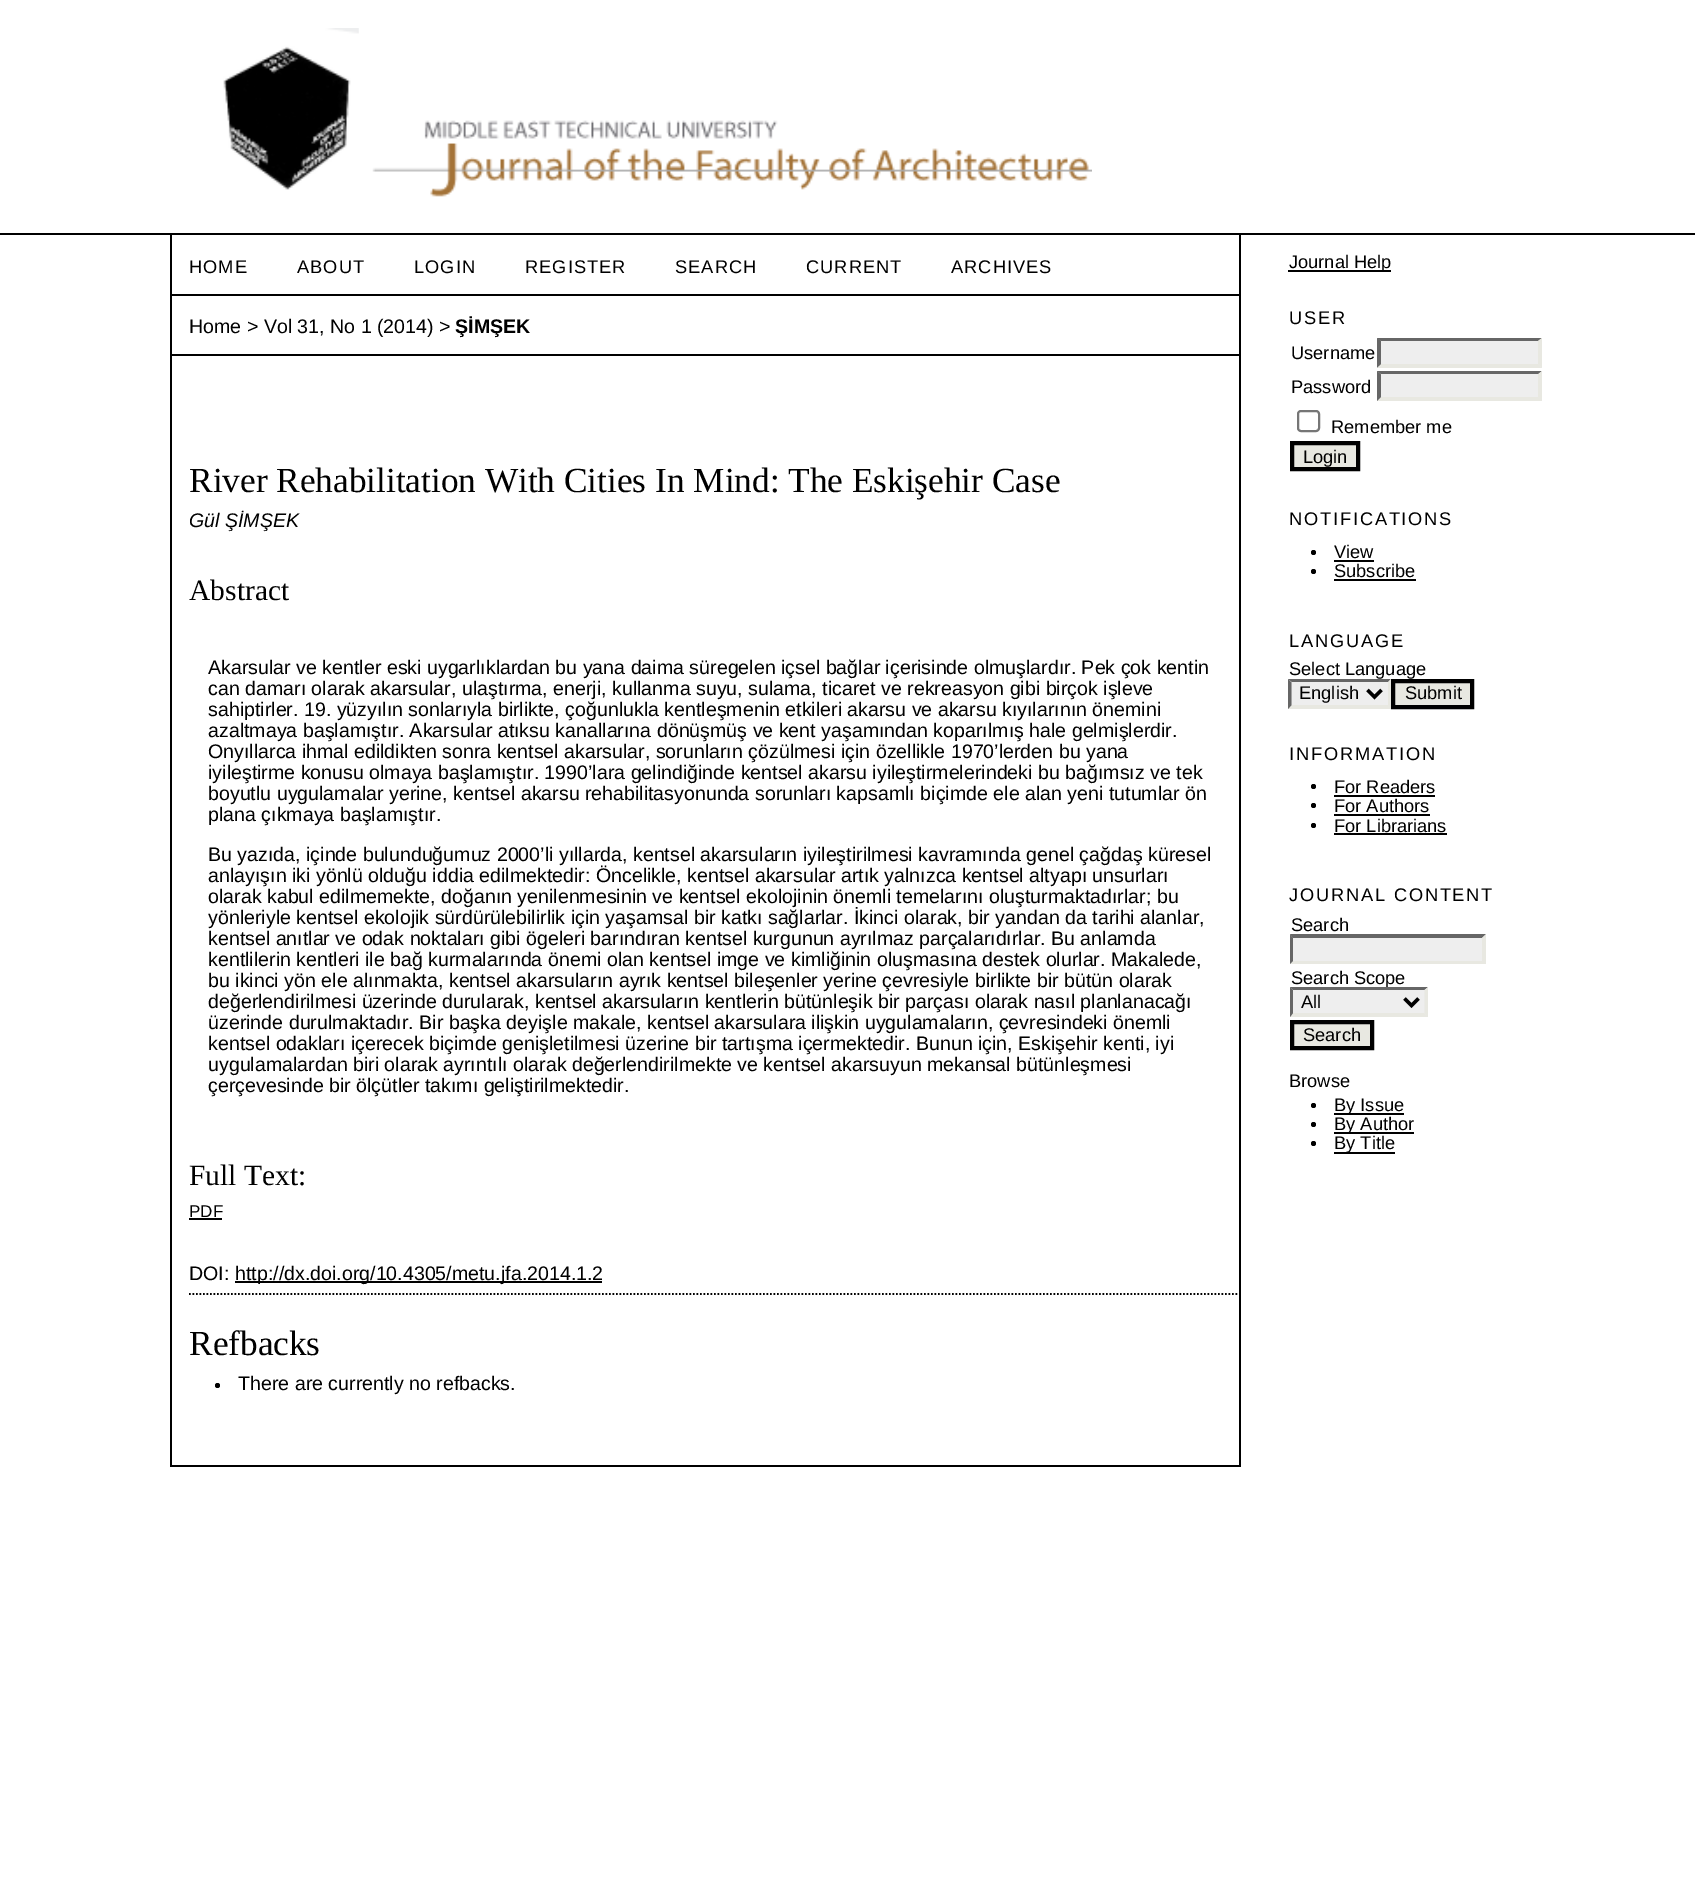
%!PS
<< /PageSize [1695 1884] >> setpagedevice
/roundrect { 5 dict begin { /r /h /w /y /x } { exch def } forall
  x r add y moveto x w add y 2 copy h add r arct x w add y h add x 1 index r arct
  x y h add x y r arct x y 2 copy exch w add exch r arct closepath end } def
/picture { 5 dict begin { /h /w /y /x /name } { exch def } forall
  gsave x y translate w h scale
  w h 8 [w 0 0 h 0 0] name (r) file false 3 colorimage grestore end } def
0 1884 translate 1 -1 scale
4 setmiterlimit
1 setgray
0 0 1695 1884 rectfill
0 setgray
0 233 1695 2 rectfill
(img1.rgb) 223 28 136 162 picture
(img2.rgb) 372 120 720 77 picture
1239 235 2 1232 rectfill
170 1465 1071 2 rectfill
170 235 2 1232 rectfill
172 294 1067 2 rectfill
/LiberationSans-Regular [18.25 0 0 -18.25 0 0] selectfont
189 273 moveto 1 0 (HOME) ashow
297 273 moveto 1 0 (ABOUT) ashow
414 273 moveto 1 0 (LOGIN) ashow
525 273 moveto 1 0 (REGISTER) ashow
675 273 moveto 1 0 (SEARCH) ashow
806 273 moveto 1 0 (CURRENT) ashow
951 273 moveto 1 0 (ARCHIVES) ashow
172 354 1067 2 rectfill
/LiberationSans-Regular [19.6 0 0 -19.6 0 0] selectfont
189 333 moveto (Home > Vol 31, No 1 \(2014\) >) show
/LiberationSans-Bold [19.6 0 0 -19.6 0 0] selectfont
455 333 moveto (ŞİMŞEK) show
/LiberationSerif-Regular [35.25 0 0 -35.25 0 0] selectfont
189 492 moveto (River Rehabilitation With Cities In Mind: The Eskişehir Case) show
/LiberationSans-Italic [19.6 0 0 -19.6 0 0] selectfont
189 527 moveto (Gül ŞİMŞEK) show
/LiberationSerif-Regular [29.5 0 0 -29.5 0 0] selectfont
189 600 moveto (Abstract) show
/LiberationSans-Regular [19.6 0 0 -19.6 0 0] selectfont
208 674 moveto (Akarsular ve kentler eski uygarlıklardan bu yana daima süregelen içsel bağlar içerisinde olmuşlardır. Pek çok kentin) show
208 695 moveto (can damarı olarak akarsular, ulaştırma, enerji, kullanma suyu, sulama, ticaret ve rekreasyon gibi birçok işleve) show
208 716 moveto (sahiptirler. 19. yüzyılın sonlarıyla birlikte, çoğunlukla kentleşmenin etkileri akarsu ve akarsu kıyılarının önemini) show
208 737 moveto (azaltmaya başlamıştır. Akarsular atıksu kanallarına dönüşmüş ve kent yaşamından koparılmış hale gelmişlerdir.) show
208 758 moveto (Onyıllarca ihmal edildikten sonra kentsel akarsular, sorunların çözülmesi için özellikle 1970’lerden bu yana) show
208 779 moveto (iyileştirme konusu olmaya başlamıştır. 1990’lara gelindiğinde kentsel akarsu iyileştirmelerindeki bu bağımsız ve tek) show
208 800 moveto (boyutlu uygulamalar yerine, kentsel akarsu rehabilitasyonunda sorunları kapsamlı biçimde ele alan yeni tutumlar ön) show
208 821 moveto (plana çıkmaya başlamıştır.) show
208 861 moveto (Bu yazıda, içinde bulunduğumuz 2000’li yıllarda, kentsel akarsuların iyileştirilmesi kavramında genel çağdaş küresel) show
208 882 moveto (anlayışın iki yönlü olduğu iddia edilmektedir: Öncelikle, kentsel akarsular artık yalnızca kentsel altyapı unsurları) show
208 903 moveto (olarak kabul edilmemekte, doğanın yenilenmesinin ve kentsel ekolojinin önemli temelarını oluşturmaktadırlar; bu) show
208 924 moveto (yönleriyle kentsel ekolojik sürdürülebilirlik için yaşamsal bir katkı sağlarlar. İkinci olarak, bir yandan da tarihi alanlar,) show
208 945 moveto (kentsel anıtlar ve odak noktaları gibi ögeleri barındıran kentsel kurgunun ayrılmaz parçalarıdırlar. Bu anlamda) show
208 966 moveto (kentlilerin kentleri ile bağ kurmalarında önemi olan kentsel imge ve kimliğinin oluşmasına destek olurlar. Makalede,) show
208 987 moveto (bu ikinci yön ele alınmakta, kentsel akarsuların ayrık kentsel bileşenler yerine çevresiyle birlikte bir bütün olarak) show
208 1008 moveto (değerlendirilmesi üzerinde durularak, kentsel akarsuların kentlerin bütünleşik bir parçası olarak nasıl planlanacağı) show
208 1029 moveto (üzerinde durulmaktadır. Bir başka deyişle makale, kentsel akarsulara ilişkin uygulamaların, çevresindeki önemli) show
208 1050 moveto (kentsel odakları içerecek biçimde genişletilmesi üzerine bir tartışma içermektedir. Bunun için, Eskişehir kenti, iyi) show
208 1071 moveto (uygulamalardan biri olarak ayrıntılı olarak değerlendirilmekte ve kentsel akarsuyun mekansal bütünleşmesi) show
208 1092 moveto (çerçevesinde bir ölçütler takımı geliştirilmektedir.) show
/LiberationSerif-Regular [29.5 0 0 -29.5 0 0] selectfont
189 1185 moveto (Full Text:) show
/LiberationSans-Regular [17 0 0 -17 0 0] selectfont
189 1217 moveto (PDF) show
189 1218 33 2 rectfill
/LiberationSans-Regular [19.6 0 0 -19.6 0 0] selectfont
189 1280 moveto (DOI:) show
235 1281 367 2 rectfill
235 1280 moveto (http://dx.doi.org/10.4305/metu.jfa.2014.1.2) show
1.8 setlinewidth
[1.75 1.75] 0 setdash
newpath 189 1294 moveto 1239 1294 lineto stroke
/LiberationSerif-Regular [35.25 0 0 -35.25 0 0] selectfont
189 1355 moveto (Refbacks) show
newpath 217.5 1385.5 2.5 0 360 arc closepath fill
/LiberationSans-Regular [19.6 0 0 -19.6 0 0] selectfont
238 1390 moveto (There are currently no refbacks.) show
1288 270 103 2 rectfill
/LiberationSans-Regular [18.25 0 0 -18.25 0 0] selectfont
1289 268 moveto (Journal Help) show
1289 324 moveto 1.8 0 (USER) ashow
1291 359 moveto (Username) show
0.933 setgray
1377 338 165 30 rectfill
0.4 setgray
newpath 1377 338 moveto 1542 338 lineto 1538 341 lineto 1381 341 lineto closepath fill
0.91 0.91 0.882 setrgbcolor
newpath 1542 338 moveto 1542 367.5 lineto 1538 364 lineto 1538 341 lineto closepath fill
newpath 1542 368 moveto 1377 368 lineto 1381 364 lineto 1538 364 lineto closepath fill
0.4 setgray
newpath 1377 367.5 moveto 1377 338 lineto 1381 341 lineto 1381 364 lineto closepath fill
0 setgray
1291 393 moveto (Password) show
0.933 setgray
1377 371 165 30 rectfill
0.4 setgray
newpath 1377 371 moveto 1542 371 lineto 1538 374 lineto 1381 374 lineto closepath fill
0.91 0.91 0.882 setrgbcolor
newpath 1542 371 moveto 1542 401 lineto 1538 397 lineto 1538 374.5 lineto closepath fill
newpath 1542 401 moveto 1377 401 lineto 1381 397 lineto 1538 397 lineto closepath fill
0.4 setgray
newpath 1377 401 moveto 1377 371 lineto 1381 374.5 lineto 1381 397 lineto closepath fill
0.463 setgray
2 setlinewidth
[] 0 setdash
1298 411 21 20 3 roundrect stroke
0 setgray
1331 433 moveto (Remember me) show
0.91 0.91 0.882 setrgbcolor
newpath 1292 443 moveto 1358 443 lineto 1358 469 lineto 1292 469 lineto closepath gsave fill grestore
0 setgray
4 setlinewidth
stroke
1303 463 moveto (Login) show
1289 525 moveto 1.8 0 (NOTIFICATIONS) ashow
newpath 1313.5 552.5 2.5 0 360 arc closepath fill
1334 558 moveto (View) show
1334 560 40 2 rectfill
newpath 1313.5 571.5 2.5 0 360 arc closepath fill
1334 577 moveto (Subscribe) show
1334 579 82 2 rectfill
1289 647 moveto 1.8 0 (LANGUAGE) ashow
1289 675 moveto (Select Language) show
0.933 setgray
1288 679 103 30 rectfill
0.4 setgray
newpath 1288 679 moveto 1391 679 lineto 1388 682 lineto 1292 682 lineto closepath fill
0.91 0.91 0.882 setrgbcolor
newpath 1391 679 moveto 1391 709 lineto 1388 705 lineto 1388 682.5 lineto closepath fill
newpath 1391 709 moveto 1288 709 lineto 1292 705 lineto 1388 705 lineto closepath fill
0.4 setgray
newpath 1288 709 moveto 1288 679 lineto 1291.5 682.5 lineto 1291.5 705 lineto closepath fill
0 setgray
3.5 setlinewidth
newpath 1367.5 690 moveto 1374.5 697 lineto 1381.5 690 lineto stroke
1299 699 moveto (English) show
0.91 0.91 0.882 setrgbcolor
newpath 1393 681 moveto 1472 681 lineto 1472 707 lineto 1393 707 lineto closepath gsave fill grestore
0 setgray
4 setlinewidth
stroke
1405 699 moveto (Submit) show
1289 760 moveto 1.8 0 (INFORMATION) ashow
newpath 1313.5 786.5 2.5 0 360 arc closepath fill
1334 793 moveto (For Readers) show
1334 795 101 2 rectfill
newpath 1313.5 805.5 2.5 0 360 arc closepath fill
1334 812 moveto (For Authors) show
1334 814 96 2 rectfill
newpath 1313.5 825.5 2.5 0 360 arc closepath fill
1334 832 moveto (For Librarians) show
1334 833 113 2 rectfill
1289 901 moveto 1.8 0 (JOURNAL CONTENT) ashow
1291 931 moveto (Search) show
0.933 setgray
1290 935 196 29 rectfill
0.4 setgray
newpath 1290 934 moveto 1486 934 lineto 1482 938 lineto 1293 938 lineto closepath fill
0.91 0.91 0.882 setrgbcolor
newpath 1486 934.5 moveto 1486 964 lineto 1482 961 lineto 1482 938 lineto closepath fill
newpath 1486 964 moveto 1290 964 lineto 1293 961 lineto 1482 961 lineto closepath fill
0.4 setgray
newpath 1290 964 moveto 1290 934.5 lineto 1293 938 lineto 1293 961 lineto closepath fill
0 setgray
1291 984 moveto (Search Scope) show
0.933 setgray
1290 987 138 30 rectfill
0.4 setgray
newpath 1290 987 moveto 1428 987 lineto 1424 990 lineto 1293 990 lineto closepath fill
0.91 0.91 0.882 setrgbcolor
newpath 1428 987 moveto 1428 1017 lineto 1424.5 1013 lineto 1424.5 990.5 lineto closepath fill
newpath 1428 1017 moveto 1290 1017 lineto 1293 1013 lineto 1424 1013 lineto closepath fill
0.4 setgray
newpath 1290 1017 moveto 1290 987 lineto 1293 990.5 lineto 1293 1013 lineto closepath fill
0 setgray
3.5 setlinewidth
newpath 1404.5 998.5 moveto 1411.5 1005.5 lineto 1418.5 998.5 lineto stroke
1301 1008 moveto (All) show
0.91 0.91 0.882 setrgbcolor
newpath 1292 1022 moveto 1372 1022 lineto 1372 1048 lineto 1292 1048 lineto closepath gsave fill grestore
0 setgray
4 setlinewidth
stroke
1303 1041 moveto (Search) show
1289 1087 moveto (Browse) show
newpath 1313.5 1105.5 2.5 0 360 arc closepath fill
1334 1113 70 2 rectfill
1334 1111 moveto (By Issue) show
newpath 1313.5 1124.5 2.5 0 360 arc closepath fill
1334 1132 80 2 rectfill
1334 1130 moveto (By Author) show
newpath 1313.5 1143.5 2.5 0 360 arc closepath fill
1334 1152 61 2 rectfill
1334 1149 moveto (By Title) show
showpage
